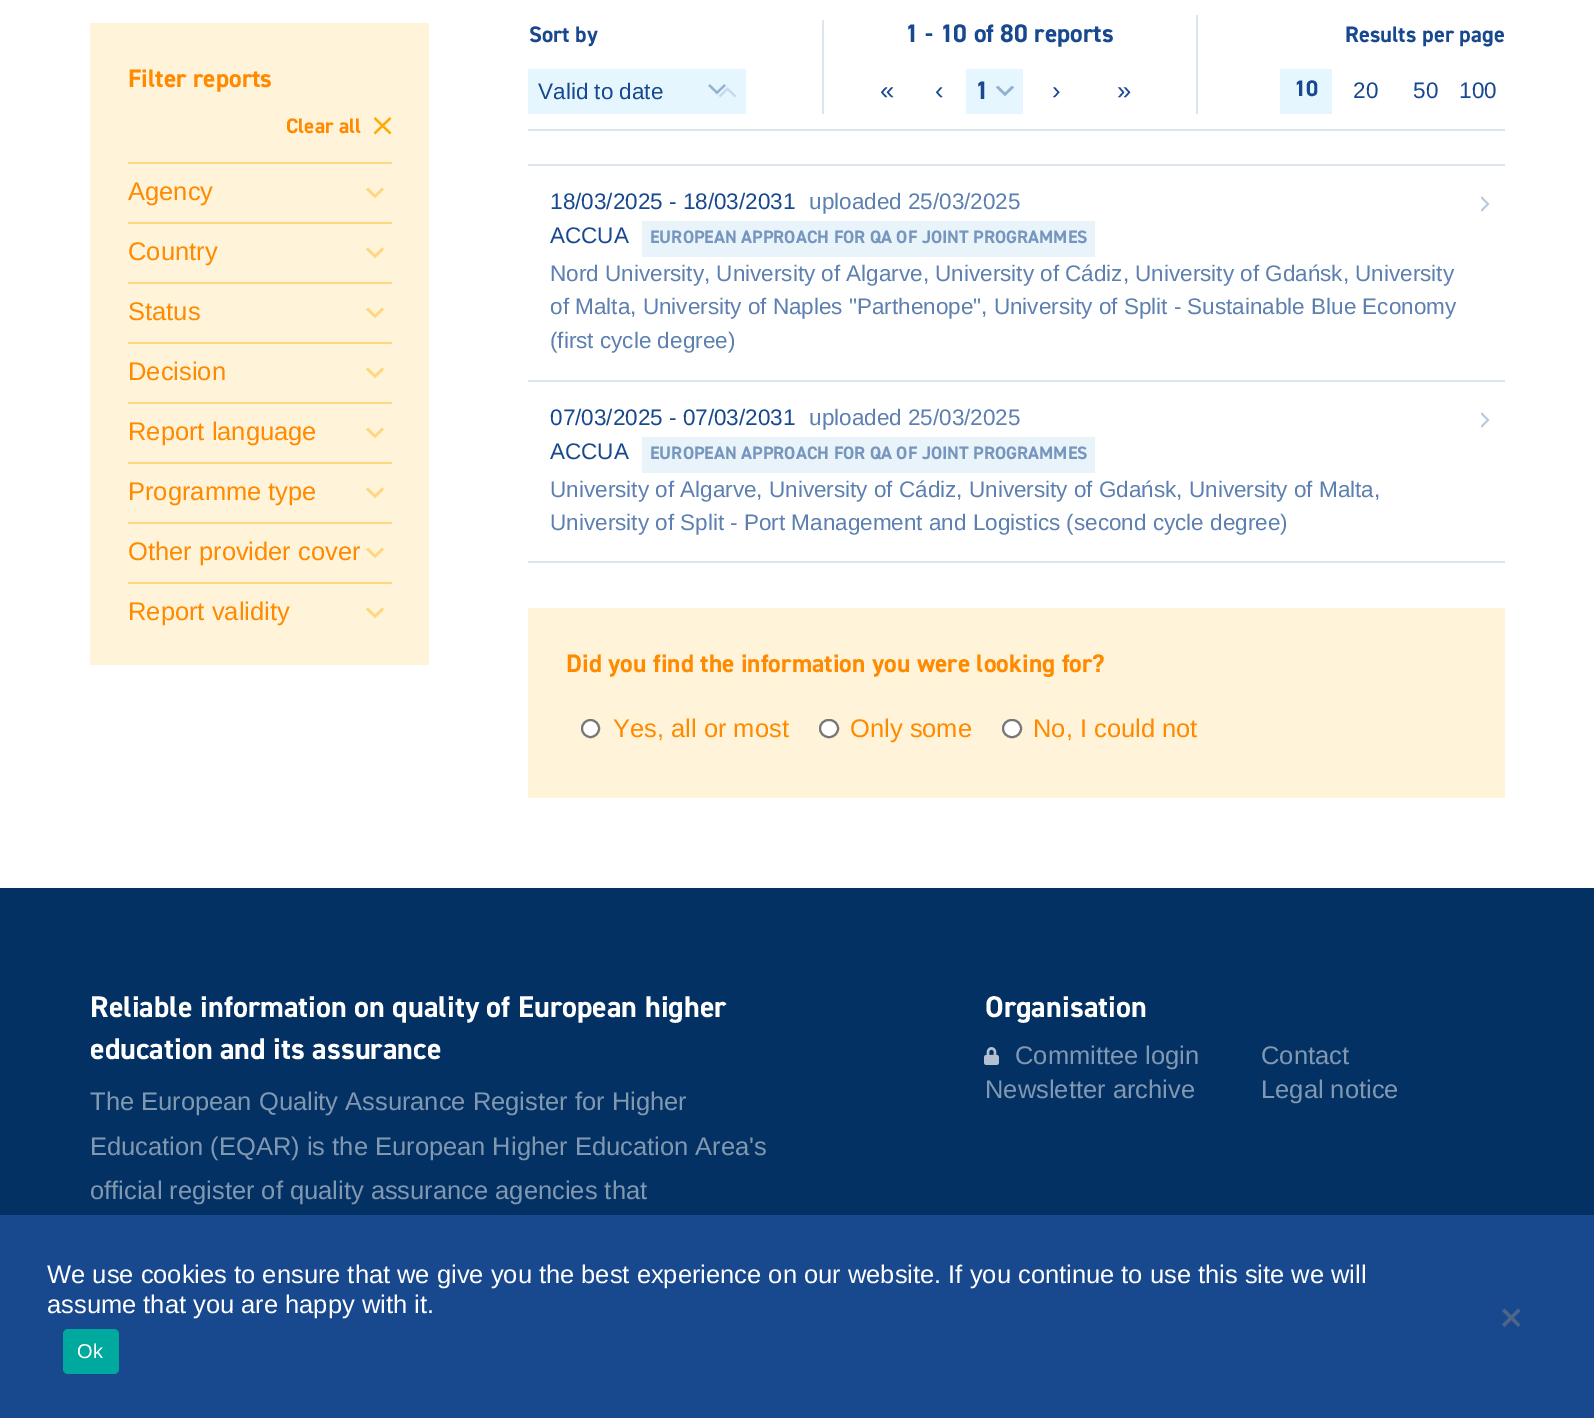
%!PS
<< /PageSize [1594 1418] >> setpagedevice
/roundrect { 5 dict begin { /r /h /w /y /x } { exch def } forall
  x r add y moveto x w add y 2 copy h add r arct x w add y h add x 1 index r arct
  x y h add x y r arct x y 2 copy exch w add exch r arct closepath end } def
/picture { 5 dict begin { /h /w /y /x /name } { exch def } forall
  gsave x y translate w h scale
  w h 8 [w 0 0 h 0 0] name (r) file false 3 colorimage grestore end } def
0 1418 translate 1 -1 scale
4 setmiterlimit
1 setgray
0 0 1594 1418 rectfill
1 0.953 0.851 setrgbcolor
90 23 339 642 rectfill
/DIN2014-Regular [25.5 0 0 -25.5 0 0] selectfont
1 0.541 0 setrgbcolor
128 87 moveto (Filter reports) show
/DIN2014-Regular [21 0 0 -21 0 0] selectfont
286 133 moveto (Clear all) show
(img1.rgb) 374 117 18 18 picture
1 0.839 0.51 setrgbcolor
128 162 264 2 rectfill
gsave
366 188 18 10 rectclip
newpath 382 187.5 moveto 384 189.5 lineto 375 198 lineto 366 189.5 lineto 368 187.5 lineto 375 194.5 lineto closepath fill
grestore
/LiberationSans-Regular [25.5 0 0 -25.5 0 0] selectfont
1 0.541 0 setrgbcolor
128 200 moveto (Agency) show
1 0.839 0.51 setrgbcolor
128 222 264 2 rectfill
gsave
366 248 18 10 rectclip
newpath 382 247.5 moveto 384 249.5 lineto 375 258 lineto 366 249.5 lineto 368 247.5 lineto 375 254.5 lineto closepath fill
grestore
1 0.541 0 setrgbcolor
128 260 moveto (Country) show
1 0.839 0.51 setrgbcolor
128 282 264 2 rectfill
gsave
366 308 18 10 rectclip
newpath 382 307.5 moveto 384 309.5 lineto 375 318 lineto 366 309.5 lineto 368 307.5 lineto 375 314.5 lineto closepath fill
grestore
1 0.541 0 setrgbcolor
128 320 moveto (Status) show
1 0.839 0.51 setrgbcolor
128 342 264 2 rectfill
gsave
366 368 18 10 rectclip
newpath 382 367.5 moveto 384 369.5 lineto 375 378 lineto 366 369.5 lineto 368 367.5 lineto 375 374.5 lineto closepath fill
grestore
1 0.541 0 setrgbcolor
128 380 moveto (Decision) show
1 0.839 0.51 setrgbcolor
128 402 264 2 rectfill
gsave
366 428 18 10 rectclip
newpath 382 427.5 moveto 384 429.5 lineto 375 438 lineto 366 429.5 lineto 368 427.5 lineto 375 434.5 lineto closepath fill
grestore
1 0.541 0 setrgbcolor
128 440 moveto (Report language) show
1 0.839 0.51 setrgbcolor
128 462 264 2 rectfill
gsave
366 488 18 10 rectclip
newpath 382 487.5 moveto 384 489.5 lineto 375 498 lineto 366 489.5 lineto 368 487.5 lineto 375 494.5 lineto closepath fill
grestore
1 0.541 0 setrgbcolor
128 500 moveto (Programme type) show
1 0.839 0.51 setrgbcolor
128 522 264 2 rectfill
gsave
366 548 18 10 rectclip
newpath 382 547.5 moveto 384 549.5 lineto 375 558 lineto 366 549.5 lineto 368 547.5 lineto 375 554.5 lineto closepath fill
grestore
1 0.541 0 setrgbcolor
128 560 moveto (Other provider cover) show
1 0.839 0.51 setrgbcolor
128 582 264 2 rectfill
gsave
366 608 18 10 rectclip
newpath 382 607.5 moveto 384 609.5 lineto 375 618 lineto 366 609.5 lineto 368 607.5 lineto 375 614.5 lineto closepath fill
grestore
1 0.541 0 setrgbcolor
128 620 moveto (Report validity) show
0.863 0.894 0.933 setrgbcolor
528 129 977 2 rectfill
822 20 2 94 rectfill
/DIN2014-Regular [22.5 0 0 -22.5 0 0] selectfont
0.094 0.286 0.561 setrgbcolor
529 42 moveto (Sort by) show
0.902 0.965 1 setrgbcolor
528 69 218 45 rectfill
/LiberationSans-Regular [22.5 0 0 -22.5 0 0] selectfont
0.094 0.286 0.561 setrgbcolor
538 99 moveto (Valid to date) show
(img2.rgb) 708 84 29 14 picture
0.863 0.894 0.933 setrgbcolor
1196 15 2 99 rectfill
/DIN2014-Regular [25.5 0 0 -25.5 0 0] selectfont
0.094 0.286 0.561 setrgbcolor
905 42 moveto (1 - 10 of 80 reports) show
/LiberationSans-Regular [25.5 0 0 -25.5 0 0] selectfont
880 99 moveto («) show
935 99 moveto (‹) show
0.902 0.965 1 setrgbcolor
966 69 57 45 rectfill
/DIN2014-Regular [25.5 0 0 -25.5 0 0] selectfont
0.094 0.286 0.561 setrgbcolor
975 99 moveto (1) show
gsave
996 86 18 10 rectclip
0.58 0.694 0.824 setrgbcolor
newpath 1012 85.5 moveto 1014 87.5 lineto 1005 96 lineto 996 87.5 lineto 998 85.5 lineto 1005 92.5 lineto closepath fill
grestore
/LiberationSans-Regular [25.5 0 0 -25.5 0 0] selectfont
1052 99 moveto (›) show
1117 99 moveto (») show
/DIN2014-Regular [22.5 0 0 -22.5 0 0] selectfont
1345 42 moveto (Results per page) show
0.902 0.965 1 setrgbcolor
1280 69 52 45 rectfill
0.094 0.286 0.561 setrgbcolor
1294 96 moveto (10) show
/LiberationSans-Regular [22.5 0 0 -22.5 0 0] selectfont
1353 98 moveto (20) show
1413 98 moveto (50) show
1459 98 moveto (100) show
0.863 0.894 0.933 setrgbcolor
528 164 977 2 rectfill
528 380 977 2 rectfill
0.094 0.286 0.561 setrgbcolor
550 209 moveto (18/03/2025 - 18/03/2031) show
0.365 0.502 0.694 setrgbcolor
809 209 moveto (uploaded 25/03/2025) show
(img3.rgb) 1481 196 9 16 picture
0.094 0.286 0.561 setrgbcolor
550 243 moveto (ACCUA) show
0.914 0.957 0.98 setrgbcolor
642 221 453 36 rectfill
/DIN2014-Regular [18 0 0 -18 0 0] selectfont
0.463 0.588 0.749 setrgbcolor
650 243 moveto (EUROPEAN APPROACH FOR QA OF JOINT PROGRAMMES) show
/LiberationSans-Regular [22.5 0 0 -22.5 0 0] selectfont
0.365 0.502 0.694 setrgbcolor
550 281 moveto (Nord University, University of Algarve, University of Cádiz, University of Gdańsk, University) show
550 314 moveto (of Malta, University of Naples "Parthenope", University of Split - Sustainable Blue Economy) show
550 348 moveto (\(first cycle degree\)) show
0.863 0.894 0.933 setrgbcolor
528 561 977 2 rectfill
0.094 0.286 0.561 setrgbcolor
550 425 moveto (07/03/2025 - 07/03/2031) show
0.365 0.502 0.694 setrgbcolor
809 425 moveto (uploaded 25/03/2025) show
(img3.rgb) 1481 412 9 16 picture
0.094 0.286 0.561 setrgbcolor
550 459 moveto (ACCUA) show
0.914 0.957 0.98 setrgbcolor
642 437 453 36 rectfill
/DIN2014-Regular [18 0 0 -18 0 0] selectfont
0.463 0.588 0.749 setrgbcolor
650 459 moveto (EUROPEAN APPROACH FOR QA OF JOINT PROGRAMMES) show
/LiberationSans-Regular [22.5 0 0 -22.5 0 0] selectfont
0.365 0.502 0.694 setrgbcolor
550 497 moveto (University of Algarve, University of Cádiz, University of Gdańsk, University of Malta,) show
550 530 moveto (University of Split - Port Management and Logistics \(second cycle degree\)) show
1 0.953 0.851 setrgbcolor
528 608 977 190 rectfill
/DIN2014-Regular [25.5 0 0 -25.5 0 0] selectfont
1 0.541 0 setrgbcolor
566 672 moveto (Did you find the information you were looking for?) show
1 setgray
newpath 590.5 728.5 8.5 0 360 arc closepath gsave fill grestore
0.463 setgray
2 setlinewidth
stroke
/LiberationSans-Regular [25.5 0 0 -25.5 0 0] selectfont
1 0.541 0 setrgbcolor
613 737 moveto (Yes, all or most) show
1 setgray
820 720 18 17 8.5 roundrect gsave fill grestore
0.463 setgray
stroke
1 0.541 0 setrgbcolor
850 737 moveto (Only some) show
1 setgray
1003 720 18 17 8.5 roundrect gsave fill grestore
0.463 setgray
stroke
1 0.541 0 setrgbcolor
1033 737 moveto (No, I could not) show
0.012 0.192 0.388 setrgbcolor
0 888 1594 327 rectfill
/DIN2014-Regular [30 0 0 -30 0 0] selectfont
1 setgray
90 1017 moveto (Reliable information on quality of European higher) show
90 1059 moveto (education and its assurance) show
/LiberationSans-Regular [25.5 0 0 -25.5 0 0] selectfont
0.506 0.596 0.694 setrgbcolor
90 1110 moveto (The European Quality Assurance Register for Higher) show
90 1155 moveto (Education \(EQAR\) is the European Higher Education Area's) show
90 1199 moveto (official register of quality assurance agencies that) show
/DIN2014-Regular [30 0 0 -30 0 0] selectfont
1 setgray
985 1017 moveto (Organisation) show
(img4.rgb) 984 1047 15 18 picture
/LiberationSans-Regular [25.5 0 0 -25.5 0 0] selectfont
0.506 0.596 0.694 setrgbcolor
1015 1064 moveto (Committee login) show
1261 1064 moveto (Contact) show
985 1098 moveto (Newsletter archive) show
1261 1098 moveto (Legal notice) show
0.094 0.286 0.561 setrgbcolor
0 1215 1594 203 rectfill
1 setgray
47 1283 moveto (We use cookies to ensure that we give you the best experience on our website. If you continue to use this site we will) show
47 1313 moveto (assume that you are happy with it.) show
0.298 0.396 0.533 setrgbcolor
newpath 1518 1308.5 moveto 1520.5 1311 lineto 1504.5 1327 lineto 1502 1324.5 lineto closepath fill
newpath 1502 1311 moveto 1504.5 1308.5 lineto 1520.5 1324.5 lineto 1518 1327 lineto closepath fill
0 0.663 0.616 setrgbcolor
63 1329 56 45 5 roundrect fill
/LiberationSans-Regular [20 0 0 -20 0 0] selectfont
1 setgray
77 1358 moveto (Ok) show
showpage
